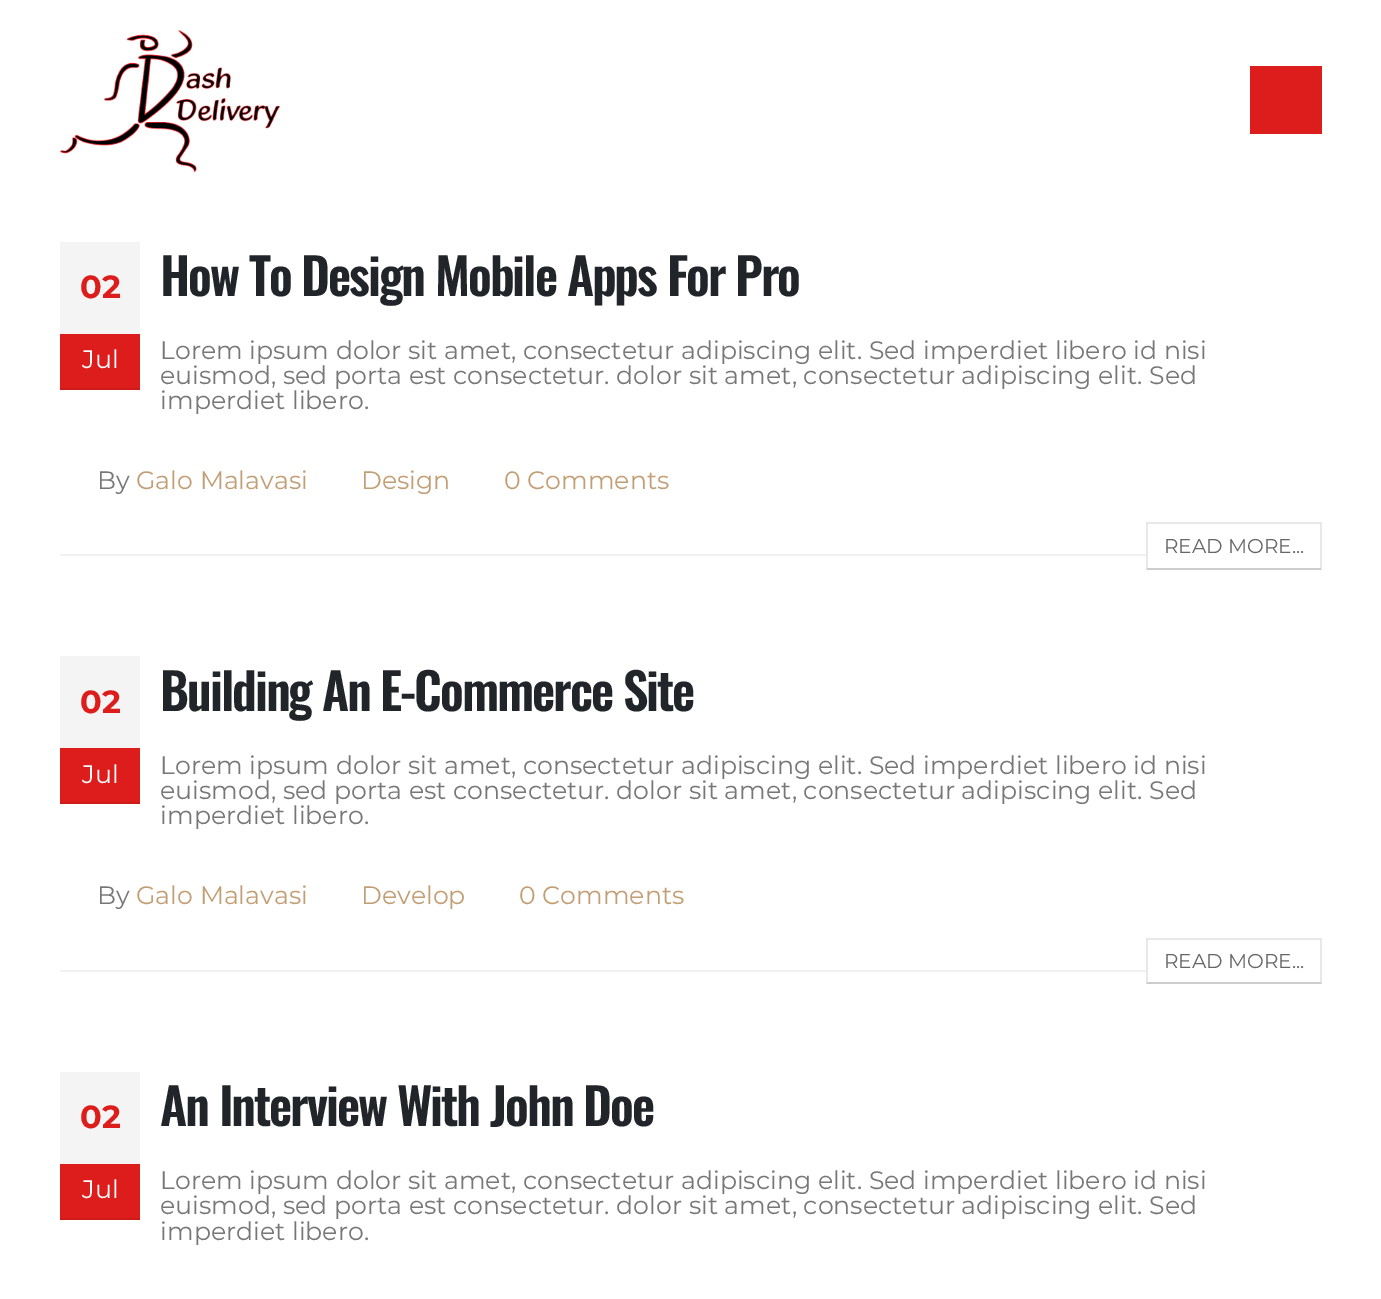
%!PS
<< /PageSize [1381 1299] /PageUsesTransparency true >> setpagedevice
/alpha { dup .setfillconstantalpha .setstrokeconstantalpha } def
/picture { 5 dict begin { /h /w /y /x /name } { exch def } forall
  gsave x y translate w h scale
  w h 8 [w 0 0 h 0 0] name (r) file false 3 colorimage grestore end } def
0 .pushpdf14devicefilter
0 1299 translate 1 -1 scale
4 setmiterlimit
1 setgray
0 0 1381 1299 rectfill
(img1.rgb) 60 30 220 142 picture
0.867 0.11 0.11 setrgbcolor
1250 66 72 68 rectfill
0.941 setgray
60 554 1086 2 rectfill
0.957 setgray
60 242 80 92 rectfill
/Montserrat-Bold [32 0 0 -32 0 0] selectfont
0.867 0.11 0.11 setrgbcolor
80 298 moveto (02) show
60 334 80 54 rectfill
0.808 0.102 0.102 setrgbcolor
60 388 80 2 rectfill
/Montserrat-Regular [25.2 0 0 -25.2 0 0] selectfont
1 setgray
82 368 moveto (Jul) show
/Oswald-SemiBold [50.4 0 0 -50.4 0 0] selectfont
0.129 0.145 0.161 setrgbcolor
160 296 moveto -2 0 (How To Design Mobile Apps For Pro) ashow
/Montserrat-Regular [25.2 0 0 -25.2 0 0] selectfont
0.467 setgray
160 359 moveto (Lorem ipsum dolor sit amet, consectetur adipiscing elit. Sed imperdiet libero id nisi) show
160 384 moveto (euismod, sed porta est consectetur. dolor sit amet, consectetur adipiscing elit. Sed) show
160 409 moveto (imperdiet libero.) show
97 489 moveto (By) show
0.761 0.62 0.459 setrgbcolor
136 489 moveto (Galo Malavasi) show
361 489 moveto (Design) show
504 489 moveto (0 Comments) show
0.91 setgray
newpath 1146 522 moveto 1322 522 lineto 1320 524 lineto 1148 524 lineto closepath fill
0.09 alpha
0 setgray
newpath 1322 522 moveto 1322 570 lineto 1320 568 lineto 1320 524 lineto closepath fill
0.2 alpha
newpath 1322 570 moveto 1146 570 lineto 1148 568 lineto 1320 568 lineto closepath fill
0.09 alpha
newpath 1146 570 moveto 1146 522 lineto 1148 524 lineto 1148 568 lineto closepath fill
/Montserrat-Regular [20 0 0 -20 0 0] selectfont
1 alpha
0.4 setgray
1164 553 moveto (READ MORE...) show
0.941 setgray
60 970 1086 2 rectfill
0.957 setgray
60 656 80 92 rectfill
/Montserrat-Bold [32 0 0 -32 0 0] selectfont
0.867 0.11 0.11 setrgbcolor
80 713 moveto (02) show
60 748 80 54 rectfill
0.808 0.102 0.102 setrgbcolor
60 802 80 2 rectfill
/Montserrat-Regular [25.2 0 0 -25.2 0 0] selectfont
1 setgray
82 783 moveto (Jul) show
/Oswald-SemiBold [50.4 0 0 -50.4 0 0] selectfont
0.129 0.145 0.161 setrgbcolor
160 711 moveto -2 0 (Building An E-Commerce Site) ashow
/Montserrat-Regular [25.2 0 0 -25.2 0 0] selectfont
0.467 setgray
160 774 moveto (Lorem ipsum dolor sit amet, consectetur adipiscing elit. Sed imperdiet libero id nisi) show
160 799 moveto (euismod, sed porta est consectetur. dolor sit amet, consectetur adipiscing elit. Sed) show
160 824 moveto (imperdiet libero.) show
97 904 moveto (By) show
0.761 0.62 0.459 setrgbcolor
136 904 moveto (Galo Malavasi) show
361 904 moveto (Develop) show
519 904 moveto (0 Comments) show
0.91 setgray
newpath 1146 938 moveto 1322 938 lineto 1320 940 lineto 1148 940 lineto closepath fill
0.09 alpha
0 setgray
newpath 1322 938 moveto 1322 984 lineto 1320 982 lineto 1320 940 lineto closepath fill
0.2 alpha
newpath 1322 984 moveto 1146 984 lineto 1148 982 lineto 1320 982 lineto closepath fill
0.09 alpha
newpath 1146 984 moveto 1146 938 lineto 1148 940 lineto 1148 982 lineto closepath fill
/Montserrat-Regular [20 0 0 -20 0 0] selectfont
1 alpha
0.4 setgray
1164 968 moveto (READ MORE...) show
0.957 setgray
60 1072 80 92 rectfill
/Montserrat-Bold [32 0 0 -32 0 0] selectfont
0.867 0.11 0.11 setrgbcolor
80 1128 moveto (02) show
60 1164 80 54 rectfill
0.808 0.102 0.102 setrgbcolor
60 1218 80 2 rectfill
/Montserrat-Regular [25.2 0 0 -25.2 0 0] selectfont
1 setgray
82 1198 moveto (Jul) show
/Oswald-SemiBold [50.4 0 0 -50.4 0 0] selectfont
0.129 0.145 0.161 setrgbcolor
160 1126 moveto -2 0 (An Interview With John Doe) ashow
/Montserrat-Regular [25.2 0 0 -25.2 0 0] selectfont
0.467 setgray
160 1189 moveto (Lorem ipsum dolor sit amet, consectetur adipiscing elit. Sed imperdiet libero id nisi) show
160 1214 moveto (euismod, sed porta est consectetur. dolor sit amet, consectetur adipiscing elit. Sed) show
160 1240 moveto (imperdiet libero.) show
.poppdf14devicefilter showpage
